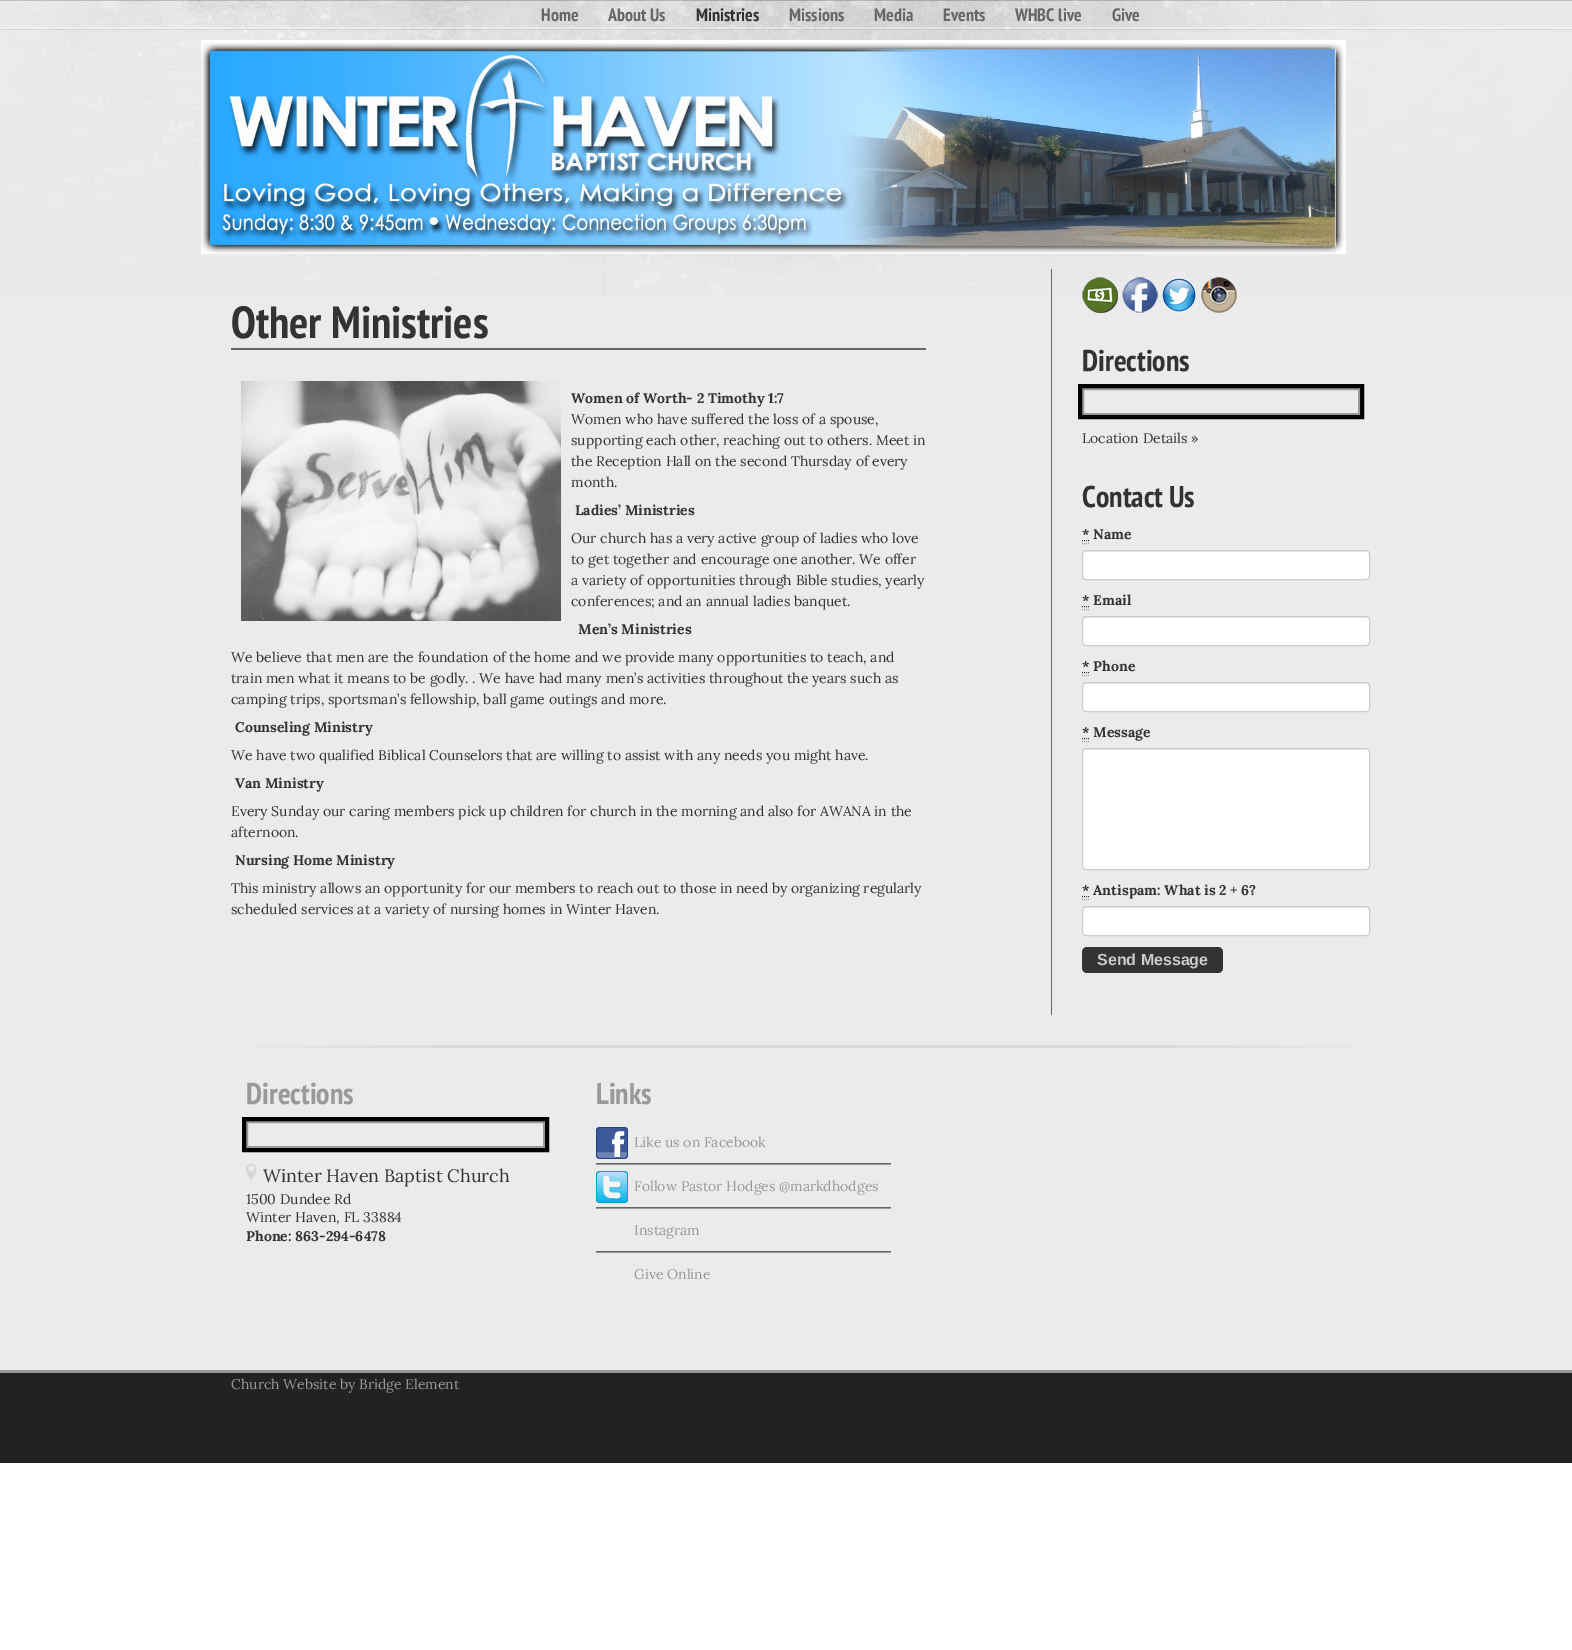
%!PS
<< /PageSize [1572 1650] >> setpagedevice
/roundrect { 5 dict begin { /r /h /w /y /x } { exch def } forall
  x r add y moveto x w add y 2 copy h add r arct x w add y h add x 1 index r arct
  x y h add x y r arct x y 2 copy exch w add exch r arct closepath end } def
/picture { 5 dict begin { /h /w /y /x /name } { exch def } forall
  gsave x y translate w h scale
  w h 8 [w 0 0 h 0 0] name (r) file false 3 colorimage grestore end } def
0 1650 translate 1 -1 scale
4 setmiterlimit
1 setgray
0 0 1572 1650 rectfill
0.925 0.922 0.922 setrgbcolor
0 296 1572 1074 rectfill
(img1.rgb) 0 0 1572 296 picture
/PTSansNarrow-Bold [18 0 0 -18 0 0] selectfont
0.4 setgray
541 21 moveto (Home) show
608 21 moveto (About Us) show
0.2 setgray
696 21 moveto (Ministries) show
0.4 setgray
789 21 moveto (Missions) show
874 21 moveto (Media) show
943 21 moveto (Events) show
1015 21 moveto (WHBC live) show
1112 21 moveto (Give) show
(img2.rgb) 201 40 1145 214 picture
231 348 695 2 rectfill
/PTSansNarrow-Bold [45 0 0 -45 0 0] selectfont
0.2 setgray
231 338 moveto (Other Ministries) show
(img3.rgb) 241 381 320 240 picture
/Lora-Bold [14 0 0 -14 0 0] selectfont
571 403 moveto (Women of Worth- 2 Timothy 1:7) show
/Lora-Regular [14 0 0 -14 0 0] selectfont
571 424 moveto (Women who have suffered the loss of a spouse,) show
571 445 moveto (supporting each other, reaching out to others. Meet in) show
571 466 moveto (the Reception Hall on the second Thursday of every) show
571 487 moveto (month.) show
/Lora-Bold [14 0 0 -14 0 0] selectfont
575 515 moveto (Ladies’ Ministries) show
/Lora-Regular [14 0 0 -14 0 0] selectfont
571 543 moveto (Our church has a very active group of ladies who love) show
571 564 moveto (to get together and encourage one another. We offer) show
571 585 moveto (a variety of opportunities through Bible studies, yearly) show
571 606 moveto (conferences; and an annual ladies banquet.) show
/Lora-Bold [14 0 0 -14 0 0] selectfont
578 634 moveto (Men’s Ministries) show
/Lora-Regular [14 0 0 -14 0 0] selectfont
231 662 moveto (We believe that men are the foundation of the home and we provide many opportunities to teach, and) show
231 683 moveto (train men what it means to be godly. . We have had many men’s activities throughout the years such as) show
231 704 moveto (camping trips, sportsman’s fellowship, ball game outings and more.) show
/Lora-Bold [14 0 0 -14 0 0] selectfont
235 732 moveto (Counseling Ministry) show
/Lora-Regular [14 0 0 -14 0 0] selectfont
231 760 moveto (We have two qualified Biblical Counselors that are willing to assist with any needs you might have.) show
/Lora-Bold [14 0 0 -14 0 0] selectfont
235 788 moveto (Van Ministry) show
/Lora-Regular [14 0 0 -14 0 0] selectfont
231 816 moveto (Every Sunday our caring members pick up children for church in the morning and also for AWANA in the) show
231 837 moveto (afternoon.) show
/Lora-Bold [14 0 0 -14 0 0] selectfont
235 865 moveto (Nursing Home Ministry) show
/Lora-Regular [14 0 0 -14 0 0] selectfont
231 893 moveto (This ministry allows an opportunity for our members to reach out to those in need by organizing regularly) show
231 914 moveto (scheduled services at a variety of nursing homes in Winter Haven.) show
0.4 setgray
1051 269 1 746 rectfill
(img4.rgb) 1082 277 36 36 picture
(img5.rgb) 1122 277 36 36 picture
(img6.rgb) 1161 277 36 36 picture
(img7.rgb) 1201 277 36 36 picture
/PTSansNarrow-Bold [30 0 0 -30 0 0] selectfont
0.2 setgray
1082 371 moveto (Directions) show
0.6 setgray
2 setlinewidth
1083 389 276 25 rectstroke
0 setgray
4 setlinewidth
1080 386 282 31 rectstroke
/Lora-Regular [14 0 0 -14 0 0] selectfont
0.2 setgray
1082 443 moveto (Location Details ») show
/PTSansNarrow-Bold [30 0 0 -30 0 0] selectfont
1082 507 moveto (Contact Us) show
/Lora-Bold [14 0 0 -14 0 0] selectfont
1082 539 moveto (* Name) show
0.6 setgray
1 setlinewidth
newpath 1082 543.5 moveto 1083 543.5 lineto 1084 543.5 moveto 1085 543.5 lineto 1086 543.5 moveto 1087 543.5 lineto 1088 543.5 moveto 1089 543.5 lineto stroke
0.2 setgray
[1 1] 0 setdash
newpath 1082 540.5 moveto 1089.5 540.5 lineto stroke
1 setgray
1082 550 288 30 4 roundrect fill
0.925 setgray
newpath 1086 552 moveto 1366 552 lineto 1368 552 1369 553 1369 555 curveto 1369 553 1368 551 1366 551 curveto 1086 551 lineto 1084 551 1083 553 1083 555 curveto 1083 553 1084 552 1086 552 curveto closepath fill
0.8 setgray
[] 0 setdash
1082.5 550.5 287 29 3.5 roundrect stroke
0.2 setgray
1082 605 moveto (* Email) show
0.6 setgray
newpath 1082 609.5 moveto 1083 609.5 lineto 1084 609.5 moveto 1085 609.5 lineto 1086 609.5 moveto 1087 609.5 lineto 1088 609.5 moveto 1089 609.5 lineto stroke
0.2 setgray
[1 1] 0 setdash
newpath 1082 606.5 moveto 1089.5 606.5 lineto stroke
1 setgray
1082 616 288 30 4 roundrect fill
0.925 setgray
newpath 1086 618 moveto 1366 618 lineto 1368 618 1369 619 1369 621 curveto 1369 619 1368 617 1366 617 curveto 1086 617 lineto 1084 617 1083 619 1083 621 curveto 1083 619 1084 618 1086 618 curveto closepath fill
0.8 setgray
[] 0 setdash
1082.5 616.5 287 29 3.5 roundrect stroke
0.2 setgray
1082 671 moveto (* Phone) show
0.6 setgray
newpath 1082 675.5 moveto 1083 675.5 lineto 1084 675.5 moveto 1085 675.5 lineto 1086 675.5 moveto 1087 675.5 lineto 1088 675.5 moveto 1089 675.5 lineto stroke
0.2 setgray
[1 1] 0 setdash
newpath 1082 672.5 moveto 1089.5 672.5 lineto stroke
1 setgray
1082 682 288 30 4 roundrect fill
0.925 setgray
newpath 1086 684 moveto 1366 684 lineto 1368 684 1369 685 1369 687 curveto 1369 685 1368 683 1366 683 curveto 1086 683 lineto 1084 683 1083 685 1083 687 curveto 1083 685 1084 684 1086 684 curveto closepath fill
0.8 setgray
[] 0 setdash
1082.5 682.5 287 29 3.5 roundrect stroke
0.2 setgray
[1 1] 0 setdash
newpath 1082 738.5 moveto 1089.5 738.5 lineto stroke
1082 737 moveto (* Message) show
0.6 setgray
[] 0 setdash
newpath 1082 741.5 moveto 1083 741.5 lineto 1084 741.5 moveto 1085 741.5 lineto 1086 741.5 moveto 1087 741.5 lineto 1088 741.5 moveto 1089 741.5 lineto stroke
1 setgray
1082 748 288 122 4 roundrect fill
0.925 setgray
newpath 1086 750 moveto 1366 750 lineto 1368 750 1369 751 1369 753 curveto 1369 751 1368 749 1366 749 curveto 1086 749 lineto 1084 749 1083 751 1083 753 curveto 1083 751 1084 750 1086 750 curveto closepath fill
0.8 setgray
1082.5 748.5 287 121 3.5 roundrect stroke
0.2 setgray
[1 1] 0 setdash
newpath 1082 896.5 moveto 1089.5 896.5 lineto stroke
1082 895 moveto (* Antispam: What is 2 + 6?) show
0.6 setgray
[] 0 setdash
newpath 1082 899.5 moveto 1083 899.5 lineto 1084 899.5 moveto 1085 899.5 lineto 1086 899.5 moveto 1087 899.5 lineto 1088 899.5 moveto 1089 899.5 lineto stroke
1 setgray
1082 906 288 30 4 roundrect fill
0.925 setgray
newpath 1086 908 moveto 1366 908 lineto 1368 908 1369 909 1369 911 curveto 1369 909 1368 907 1366 907 curveto 1086 907 lineto 1084 907 1083 909 1083 911 curveto 1083 909 1084 908 1086 908 curveto closepath fill
0.8 setgray
1082.5 906.5 287 29 3.5 roundrect stroke
0.2 setgray
1082 947 141 26 5 roundrect fill
/LiberationSans-Bold [16 0 0 -16 0 0] selectfont
0.8 setgray
1097 965 moveto (Send Message) show
(img8.rgb) 257 1045 1095 3 picture
/PTSansNarrow-Bold [30 0 0 -30 0 0] selectfont
0.6 setgray
246 1104 moveto (Directions) show
2 setlinewidth
247 1122 297 25 rectstroke
0 setgray
4 setlinewidth
244 1119 303 31 rectstroke
(img9.rgb) 246 1164 11 16 picture
/Lora-Regular [18 0 0 -18 0 0] selectfont
0.2 setgray
263 1182 moveto (Winter Haven Baptist Church) show
/Lora-Regular [14 0 0 -14 0 0] selectfont
246 1204 moveto (1500 Dundee Rd) show
246 1222 moveto (Winter Haven, FL 33884) show
/Lora-Bold [14 0 0 -14 0 0] selectfont
246 1241 moveto (Phone: 863-294-6478) show
/PTSansNarrow-Bold [30 0 0 -30 0 0] selectfont
0.6 setgray
596 1104 moveto (Links) show
0.4 setgray
596 1163 295 1 rectfill
(img10.rgb) 596 1127 32 32 picture
/Lora-Regular [14 0 0 -14 0 0] selectfont
0.6 setgray
634 1147 moveto (Like us on Facebook) show
596 1164 295 1 rectfill
0.4 setgray
596 1207 295 1 rectfill
(img11.rgb) 596 1171 32 32 picture
0.6 setgray
634 1191 moveto (Follow Pastor Hodges @markdhodges) show
596 1208 295 1 rectfill
0.4 setgray
596 1251 295 1 rectfill
0.6 setgray
634 1235 moveto (Instagram) show
596 1252 295 1 rectfill
634 1279 moveto (Give Online) show
0.133 setgray
0 1373 1572 90 rectfill
0.6 setgray
0 1370 1572 3 rectfill
231 1389 moveto (Church Website by Bridge Element) show
showpage
